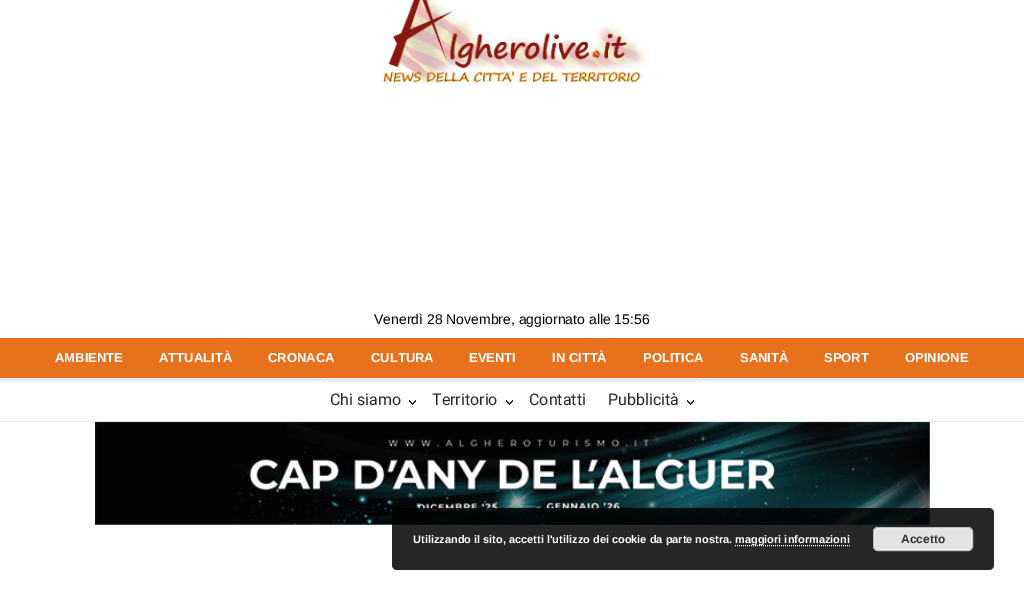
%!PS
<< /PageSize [1024 600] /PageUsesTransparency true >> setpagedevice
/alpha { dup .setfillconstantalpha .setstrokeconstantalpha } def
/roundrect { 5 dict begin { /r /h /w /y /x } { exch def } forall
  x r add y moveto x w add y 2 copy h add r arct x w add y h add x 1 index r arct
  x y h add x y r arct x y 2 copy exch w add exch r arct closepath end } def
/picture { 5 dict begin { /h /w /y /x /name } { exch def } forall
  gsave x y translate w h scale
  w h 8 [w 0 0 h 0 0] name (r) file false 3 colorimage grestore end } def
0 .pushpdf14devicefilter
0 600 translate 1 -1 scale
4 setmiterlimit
1 setgray
0 0 1024 600 rectfill
(img1.rgb) 383 0 263 86 picture
/LiberationSans-Regular [14 0 0 -14 0 0] selectfont
0 setgray
374 324 moveto (Venerdì 28 Novembre, aggiornato alle 15:56) show
0.91 0.443 0.114 setrgbcolor
0 338 1024 40 rectfill
/LiberationSans-Bold [13 0 0 -13 0 0] selectfont
1 setgray
55 362 moveto (AMBIENTE) show
159 362 moveto (ATTUALITÀ) show
268 362 moveto (CRONACA) show
371 362 moveto (CULTURA) show
469 362 moveto (EVENTI) show
552 362 moveto (IN CITTÀ) show
643 362 moveto (POLITICA) show
740 362 moveto (SANITÀ) show
824 362 moveto (SPORT) show
905 362 moveto (OPINIONE) show
0.914 setgray
0 378 1024 3 rectfill
0 421 1024 1 rectfill
322 381 380 1 rectfill
(img2.rgb) 409 400 7 5 picture
/Roboto-Regular [16 0 0 -16 0 0] selectfont
0.145 0.157 0.165 setrgbcolor
330 405 moveto (Chi siamo) show
(img2.rgb) 506 400 7 5 picture
432 405 moveto (Territorio) show
529 405 moveto (Contatti) show
(img2.rgb) 687 400 7 5 picture
608 405 moveto (Pubblicità) show
(img3.rgb) 95 422 835 103 picture
0.85 alpha
0 setgray
392 508 602 62 5 roundrect fill
/LiberationSans-Bold [11 0 0 -11 0 0] selectfont
1 alpha
1 setgray
413 543 moveto (Utilizzando il sito, accetti l'utilizzo dei cookie da parte nostra.) show
[1 1] 0 setdash
newpath 735 545.5 moveto 850 545.5 lineto stroke
735 543 moveto (maggiori informazioni) show
0.89 setgray
873 527 100 24 5 roundrect fill
0.965 setgray
[] 0 setdash
874.5 528.5 97 21 3.5 roundrect stroke
0.733 setgray
873.5 527.5 99 23 4.5 roundrect stroke
/LiberationSans-Bold [12 0 0 -12 0 0] selectfont
0.2 setgray
901 543 moveto (Accetto) show
.poppdf14devicefilter showpage
